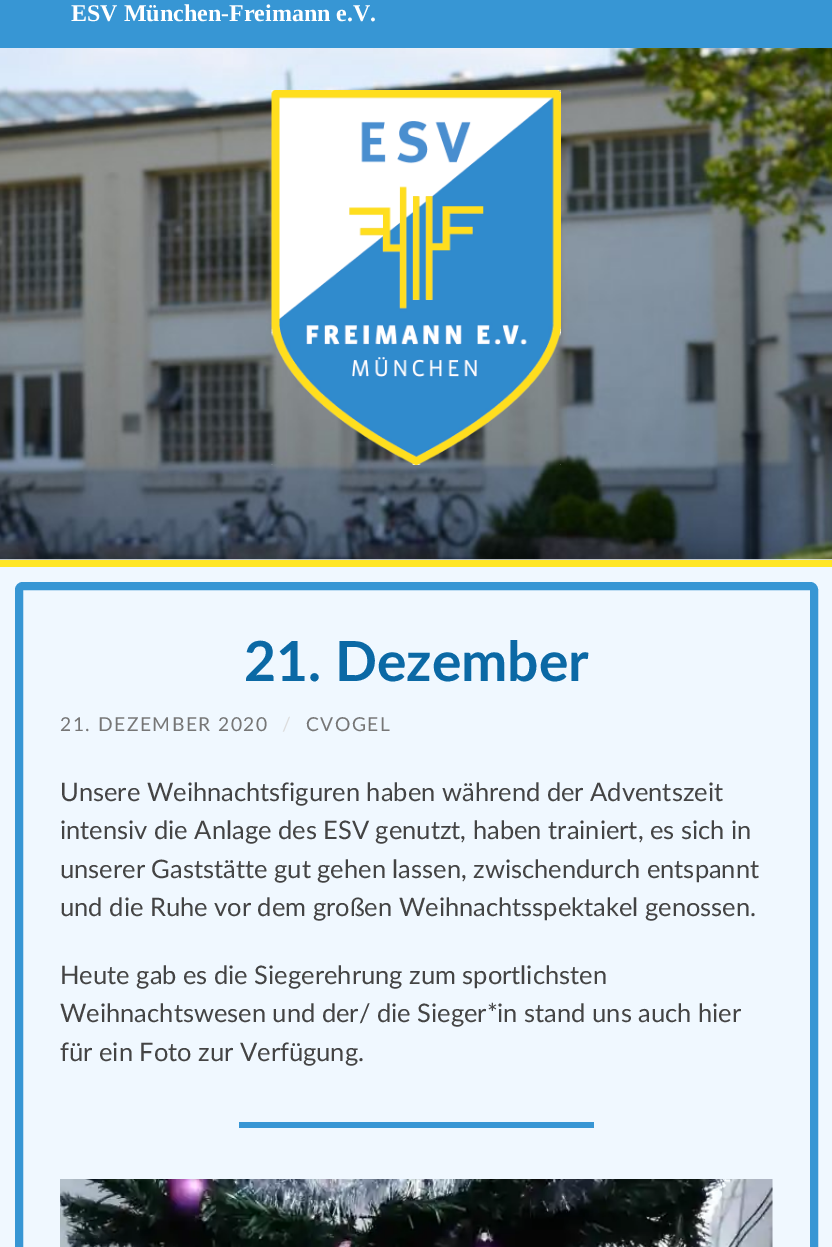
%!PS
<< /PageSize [832 1247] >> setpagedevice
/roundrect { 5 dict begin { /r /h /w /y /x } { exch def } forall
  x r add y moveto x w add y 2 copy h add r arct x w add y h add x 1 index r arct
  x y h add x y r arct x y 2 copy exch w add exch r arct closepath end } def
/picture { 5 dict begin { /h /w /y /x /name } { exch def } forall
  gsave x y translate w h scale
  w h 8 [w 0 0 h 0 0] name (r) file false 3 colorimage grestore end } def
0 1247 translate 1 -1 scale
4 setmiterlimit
0.941 0.973 1 setrgbcolor
0 0 832 1247 rectfill
0.216 0.588 0.831 setrgbcolor
0 0 832 48 rectfill
/LiberationSerif-Bold [24 0 0 -24 0 0] selectfont
1 setgray
71 21 moveto (ESV München-Freimann e.V.) show
(img1.rgb) 0 48 832 512 picture
(img2.rgb) 271 90 290 375 picture
1 0.902 0.149 setrgbcolor
0 560 832 7 rectfill
0.216 0.588 0.831 setrgbcolor
8 setlinewidth
19 586 795 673 4 roundrect stroke
/Lato-Bold [55.25 0 0 -55.25 0 0] selectfont
0.043 0.412 0.647 setrgbcolor
244 681 moveto (21. Dezember) show
/Lato-Regular [19.25 0 0 -19.25 0 0] selectfont
0.463 setgray
60 731 moveto 1.5 0 (21. DEZEMBER 2020) ashow
0.867 setgray
282 731 moveto 1.5 0 (/) ashow
0.463 setgray
306 731 moveto 1.5 0 (CVOGEL) ashow
/Lato-Regular [25.5 0 0 -25.5 0 0] selectfont
0.267 setgray
60 801 moveto (Unsere Weihnachtsfiguren haben während der Adventszeit) show
60 839 moveto (intensiv die Anlage des ESV genutzt, haben trainiert, es sich in) show
60 878 moveto (unserer Gaststätte gut gehen lassen, zwischendurch entspannt) show
60 916 moveto (und die Ruhe vor dem großen Weihnachtsspektakel genossen.) show
60 984 moveto (Heute gab es die Siegerehrung zum sportlichsten) show
60 1022 moveto (Weihnachtswesen und der/ die Sieger*in stand uns auch hier) show
60 1061 moveto (für ein Foto zur Verfügung.) show
0.216 0.588 0.831 setrgbcolor
239 1122 355 6 rectfill
(img3.rgb) 60 1179 713 68 picture
showpage
